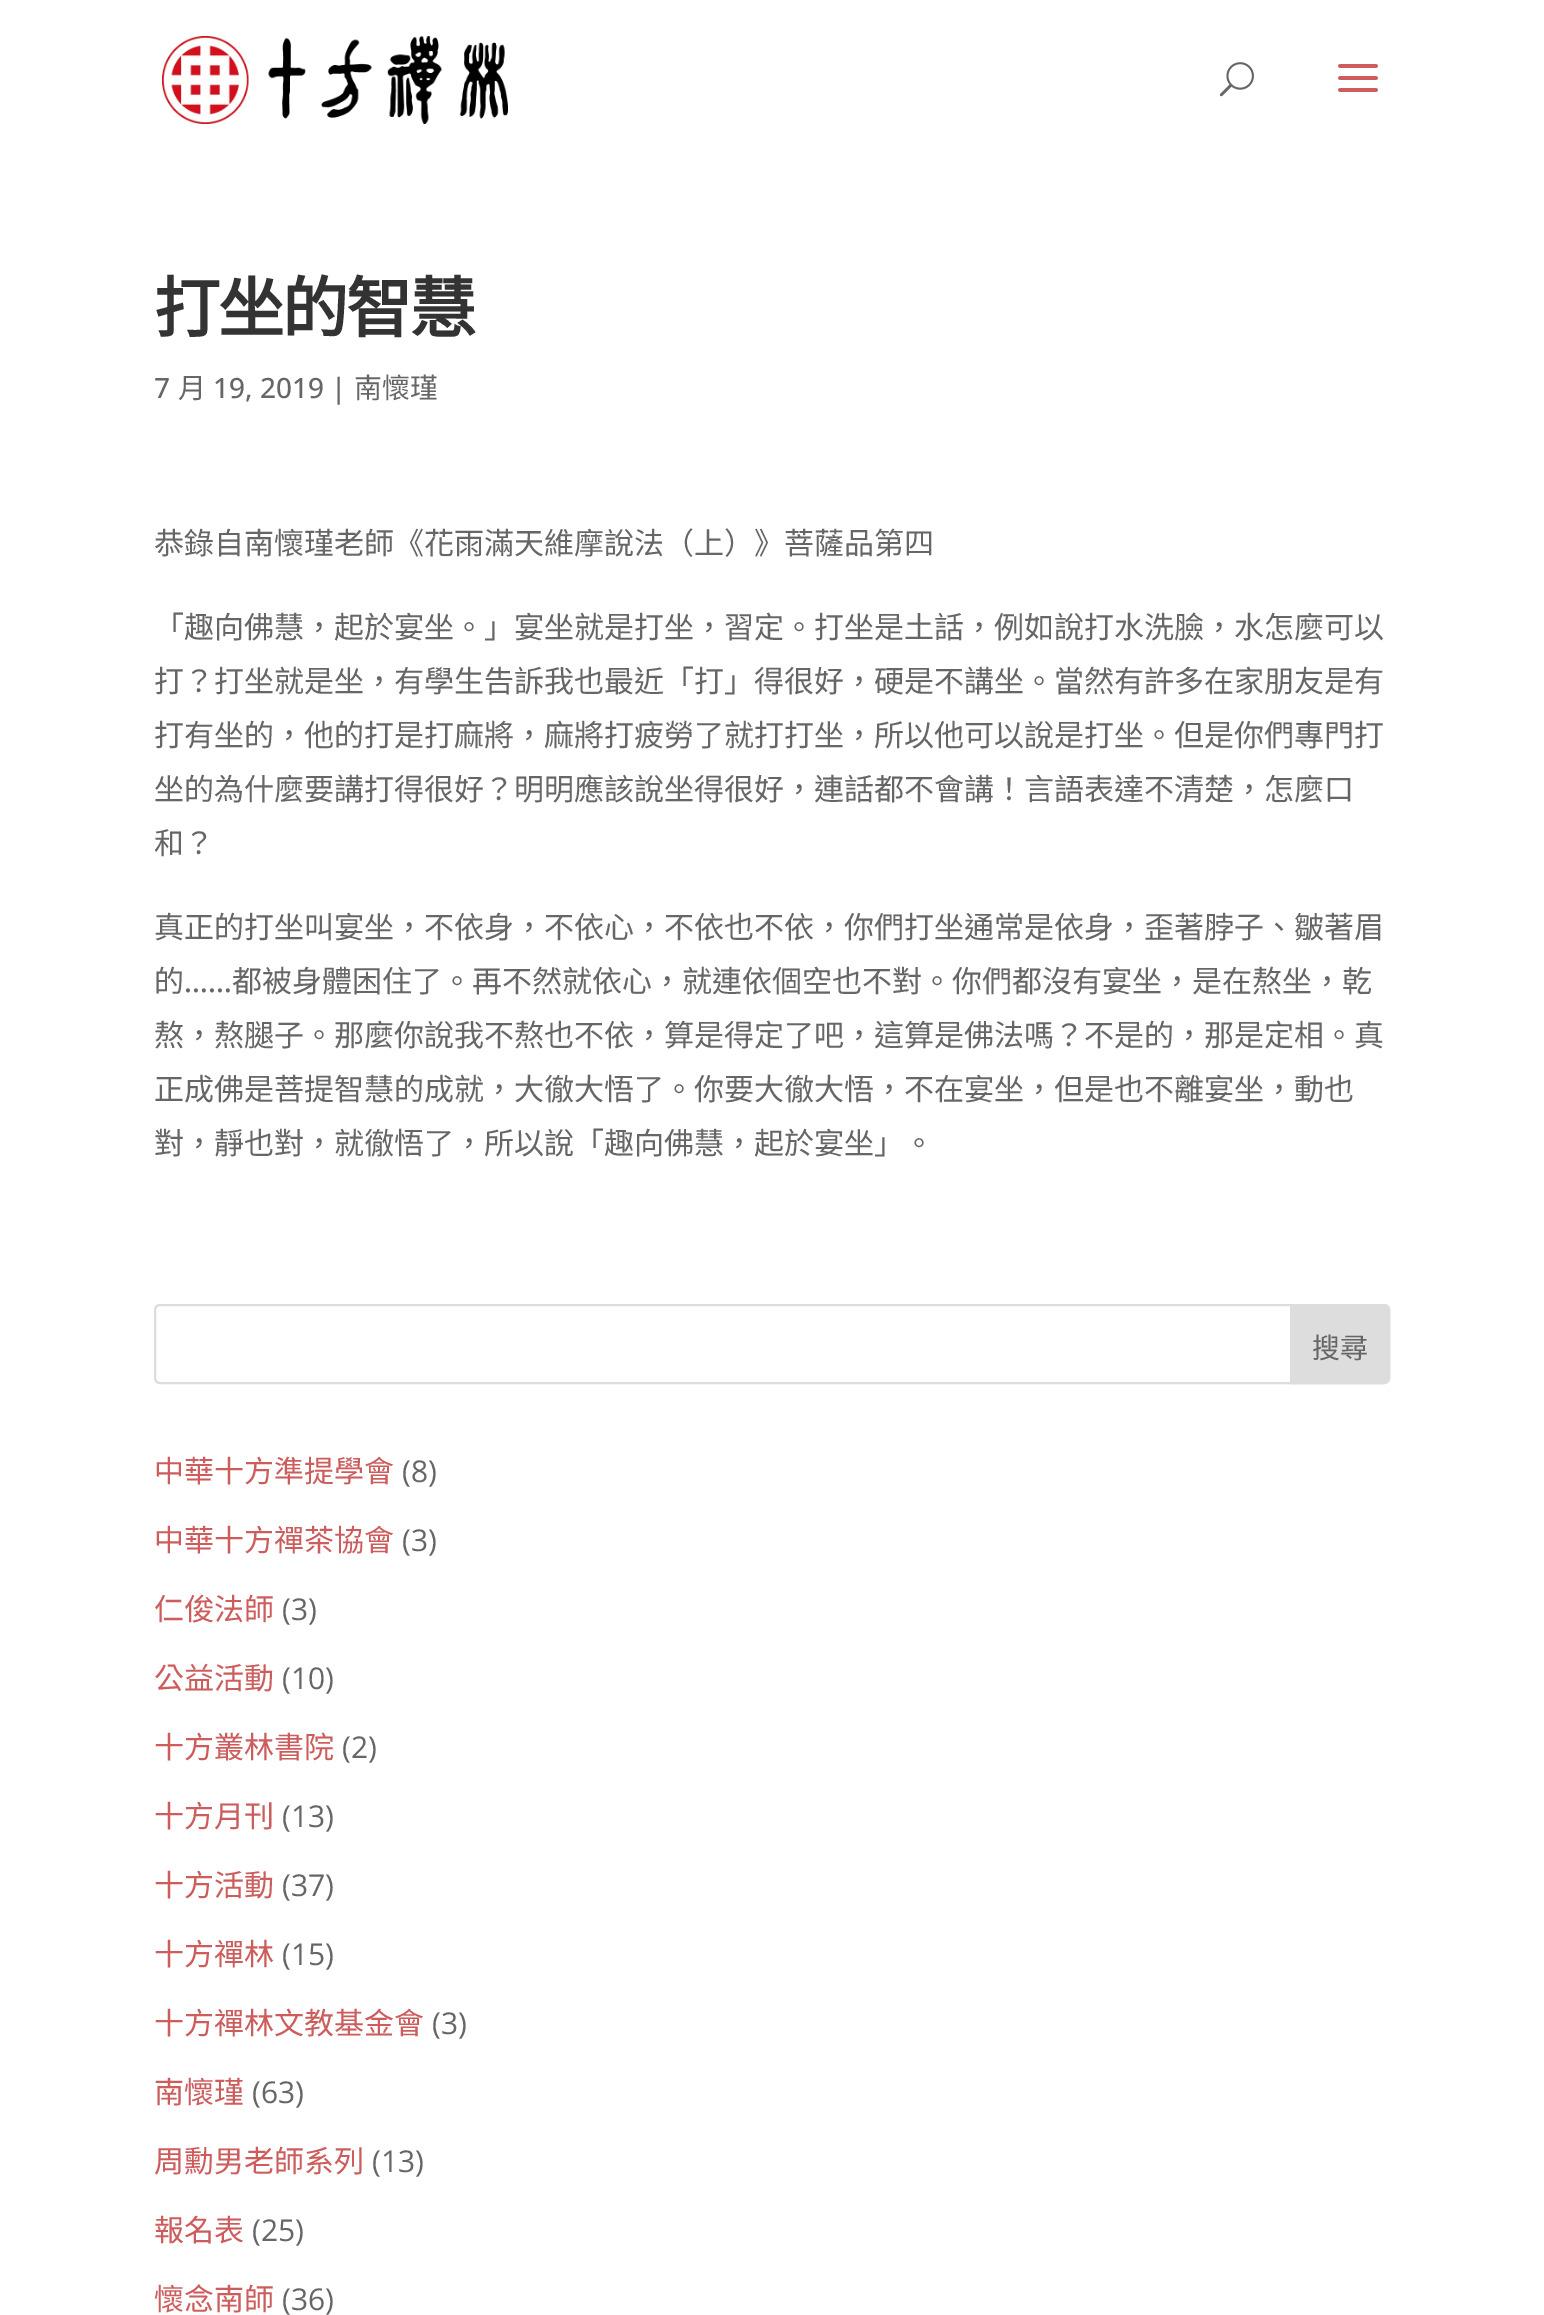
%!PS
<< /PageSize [1544 2315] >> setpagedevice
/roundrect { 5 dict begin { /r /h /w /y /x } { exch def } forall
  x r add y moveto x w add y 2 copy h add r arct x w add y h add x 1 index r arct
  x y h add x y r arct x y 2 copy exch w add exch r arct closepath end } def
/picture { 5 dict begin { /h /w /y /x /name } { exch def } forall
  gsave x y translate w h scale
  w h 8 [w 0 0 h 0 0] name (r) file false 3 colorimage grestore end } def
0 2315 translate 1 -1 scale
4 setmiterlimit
1 setgray
0 0 1544 2315 rectfill
(img1.rgb) 162 36 346 88 picture
(img2.rgb) 1219 62 35 35 picture
(img3.rgb) 1338 64 40 28 picture
/NotoSansCJKTC-Bold [66 0 0 -66 0 0] selectfont
0.2 setgray
154 332 moveto -2 0 (打坐的智慧) ashow
/OpenSans-Medium [28 0 0 -28 0 0] selectfont
0.4 setgray
154 398 moveto (7) show
/NotoSansCJKTC-Regular [28 0 0 -28 0 0] selectfont
178 398 moveto (月) show
/OpenSans-Medium [28 0 0 -28 0 0] selectfont
213 398 moveto (19, 2019 |) show
/NotoSansCJKTC-Regular [28 0 0 -28 0 0] selectfont
354 398 moveto (南懷瑾) show
/NotoSansCJKTC-Regular [30 0 0 -30 0 0] selectfont
154 554 moveto (恭錄自南懷瑾老師《花雨滿天維摩說法（上）》菩薩品第四) show
154 638 moveto (「趣向佛慧，起於宴坐。」宴坐就是打坐，習定。打坐是土話，例如說打水洗臉，水怎麼可以) show
154 692 moveto (打？打坐就是坐，有學生告訴我也最近「打」得很好，硬是不講坐。當然有許多在家朋友是有) show
154 746 moveto (打有坐的，他的打是打麻將，麻將打疲勞了就打打坐，所以他可以說是打坐。但是你們專門打) show
154 800 moveto (坐的為什麼要講打得很好？明明應該說坐得很好，連話都不會講！言語表達不清楚，怎麼口) show
154 854 moveto (和？) show
154 938 moveto (真正的打坐叫宴坐，不依身，不依心，不依也不依，你們打坐通常是依身，歪著脖子、皺著眉) show
154 992 moveto (的) show
/OpenSans-Medium [30 0 0 -30 0 0] selectfont
184 992 moveto (……) show
/NotoSansCJKTC-Regular [30 0 0 -30 0 0] selectfont
232 992 moveto (都被身體困住了。再不然就依心，就連依個空也不對。你們都沒有宴坐，是在熬坐，乾) show
154 1046 moveto (熬，熬腿子。那麼你說我不熬也不依，算是得定了吧，這算是佛法嗎？不是的，那是定相。真) show
154 1100 moveto (正成佛是菩提智慧的成就，大徹大悟了。你要大徹大悟，不在宴坐，但是也不離宴坐，動也) show
154 1154 moveto (對，靜也對，就徹悟了，所以說「趣向佛慧，起於宴坐」。) show
0.867 setgray
2 setlinewidth
155 1305 1234 78 5 roundrect stroke
newpath 1291 1305 moveto 1384 1305 lineto 1387 1305 1389 1307 1389 1310 curveto 1389 1378 lineto 1389 1381 1387 1383 1384 1383 curveto 1291 1383 lineto closepath gsave fill grestore
stroke
/NotoSansCJKTC-Regular [28 0 0 -28 0 0] selectfont
0.4 setgray
1312 1358 moveto (搜尋) show
/NotoSansCJKTC-Regular [30 0 0 -30 0 0] selectfont
0.804 0.361 0.361 setrgbcolor
154 1482 moveto (中華十方準提學會) show
/OpenSans-Regular [30 0 0 -30 0 0] selectfont
0.4 setgray
402 1482 moveto (\(8\)) show
/NotoSansCJKTC-Regular [30 0 0 -30 0 0] selectfont
0.804 0.361 0.361 setrgbcolor
154 1551 moveto (中華十方禪茶協會) show
/OpenSans-Regular [30 0 0 -30 0 0] selectfont
0.4 setgray
402 1551 moveto (\(3\)) show
/NotoSansCJKTC-Regular [30 0 0 -30 0 0] selectfont
0.804 0.361 0.361 setrgbcolor
154 1620 moveto (仁俊法師) show
/OpenSans-Regular [30 0 0 -30 0 0] selectfont
0.4 setgray
282 1620 moveto (\(3\)) show
/NotoSansCJKTC-Regular [30 0 0 -30 0 0] selectfont
0.804 0.361 0.361 setrgbcolor
154 1689 moveto (公益活動) show
/OpenSans-Regular [30 0 0 -30 0 0] selectfont
0.4 setgray
282 1689 moveto (\(10\)) show
/NotoSansCJKTC-Regular [30 0 0 -30 0 0] selectfont
0.804 0.361 0.361 setrgbcolor
154 1758 moveto (十方叢林書院) show
/OpenSans-Regular [30 0 0 -30 0 0] selectfont
0.4 setgray
342 1758 moveto (\(2\)) show
/NotoSansCJKTC-Regular [30 0 0 -30 0 0] selectfont
0.804 0.361 0.361 setrgbcolor
154 1827 moveto (十方月刊) show
/OpenSans-Regular [30 0 0 -30 0 0] selectfont
0.4 setgray
282 1827 moveto (\(13\)) show
/NotoSansCJKTC-Regular [30 0 0 -30 0 0] selectfont
0.804 0.361 0.361 setrgbcolor
154 1896 moveto (十方活動) show
/OpenSans-Regular [30 0 0 -30 0 0] selectfont
0.4 setgray
282 1896 moveto (\(37\)) show
/NotoSansCJKTC-Regular [30 0 0 -30 0 0] selectfont
0.804 0.361 0.361 setrgbcolor
154 1965 moveto (十方禪林) show
/OpenSans-Regular [30 0 0 -30 0 0] selectfont
0.4 setgray
282 1965 moveto (\(15\)) show
/NotoSansCJKTC-Regular [30 0 0 -30 0 0] selectfont
0.804 0.361 0.361 setrgbcolor
154 2034 moveto (十方禪林文教基金會) show
/OpenSans-Regular [30 0 0 -30 0 0] selectfont
0.4 setgray
432 2034 moveto (\(3\)) show
/NotoSansCJKTC-Regular [30 0 0 -30 0 0] selectfont
0.804 0.361 0.361 setrgbcolor
154 2103 moveto (南懷瑾) show
/OpenSans-Regular [30 0 0 -30 0 0] selectfont
0.4 setgray
252 2103 moveto (\(63\)) show
/NotoSansCJKTC-Regular [30 0 0 -30 0 0] selectfont
0.804 0.361 0.361 setrgbcolor
154 2172 moveto (周勳男老師系列) show
/OpenSans-Regular [30 0 0 -30 0 0] selectfont
0.4 setgray
372 2172 moveto (\(13\)) show
/NotoSansCJKTC-Regular [30 0 0 -30 0 0] selectfont
0.804 0.361 0.361 setrgbcolor
154 2241 moveto (報名表) show
/OpenSans-Regular [30 0 0 -30 0 0] selectfont
0.4 setgray
252 2241 moveto (\(25\)) show
/NotoSansCJKTC-Regular [30 0 0 -30 0 0] selectfont
0.804 0.361 0.361 setrgbcolor
154 2310 moveto (懷念南師) show
/OpenSans-Regular [30 0 0 -30 0 0] selectfont
0.4 setgray
282 2310 moveto (\(36\)) show
showpage
